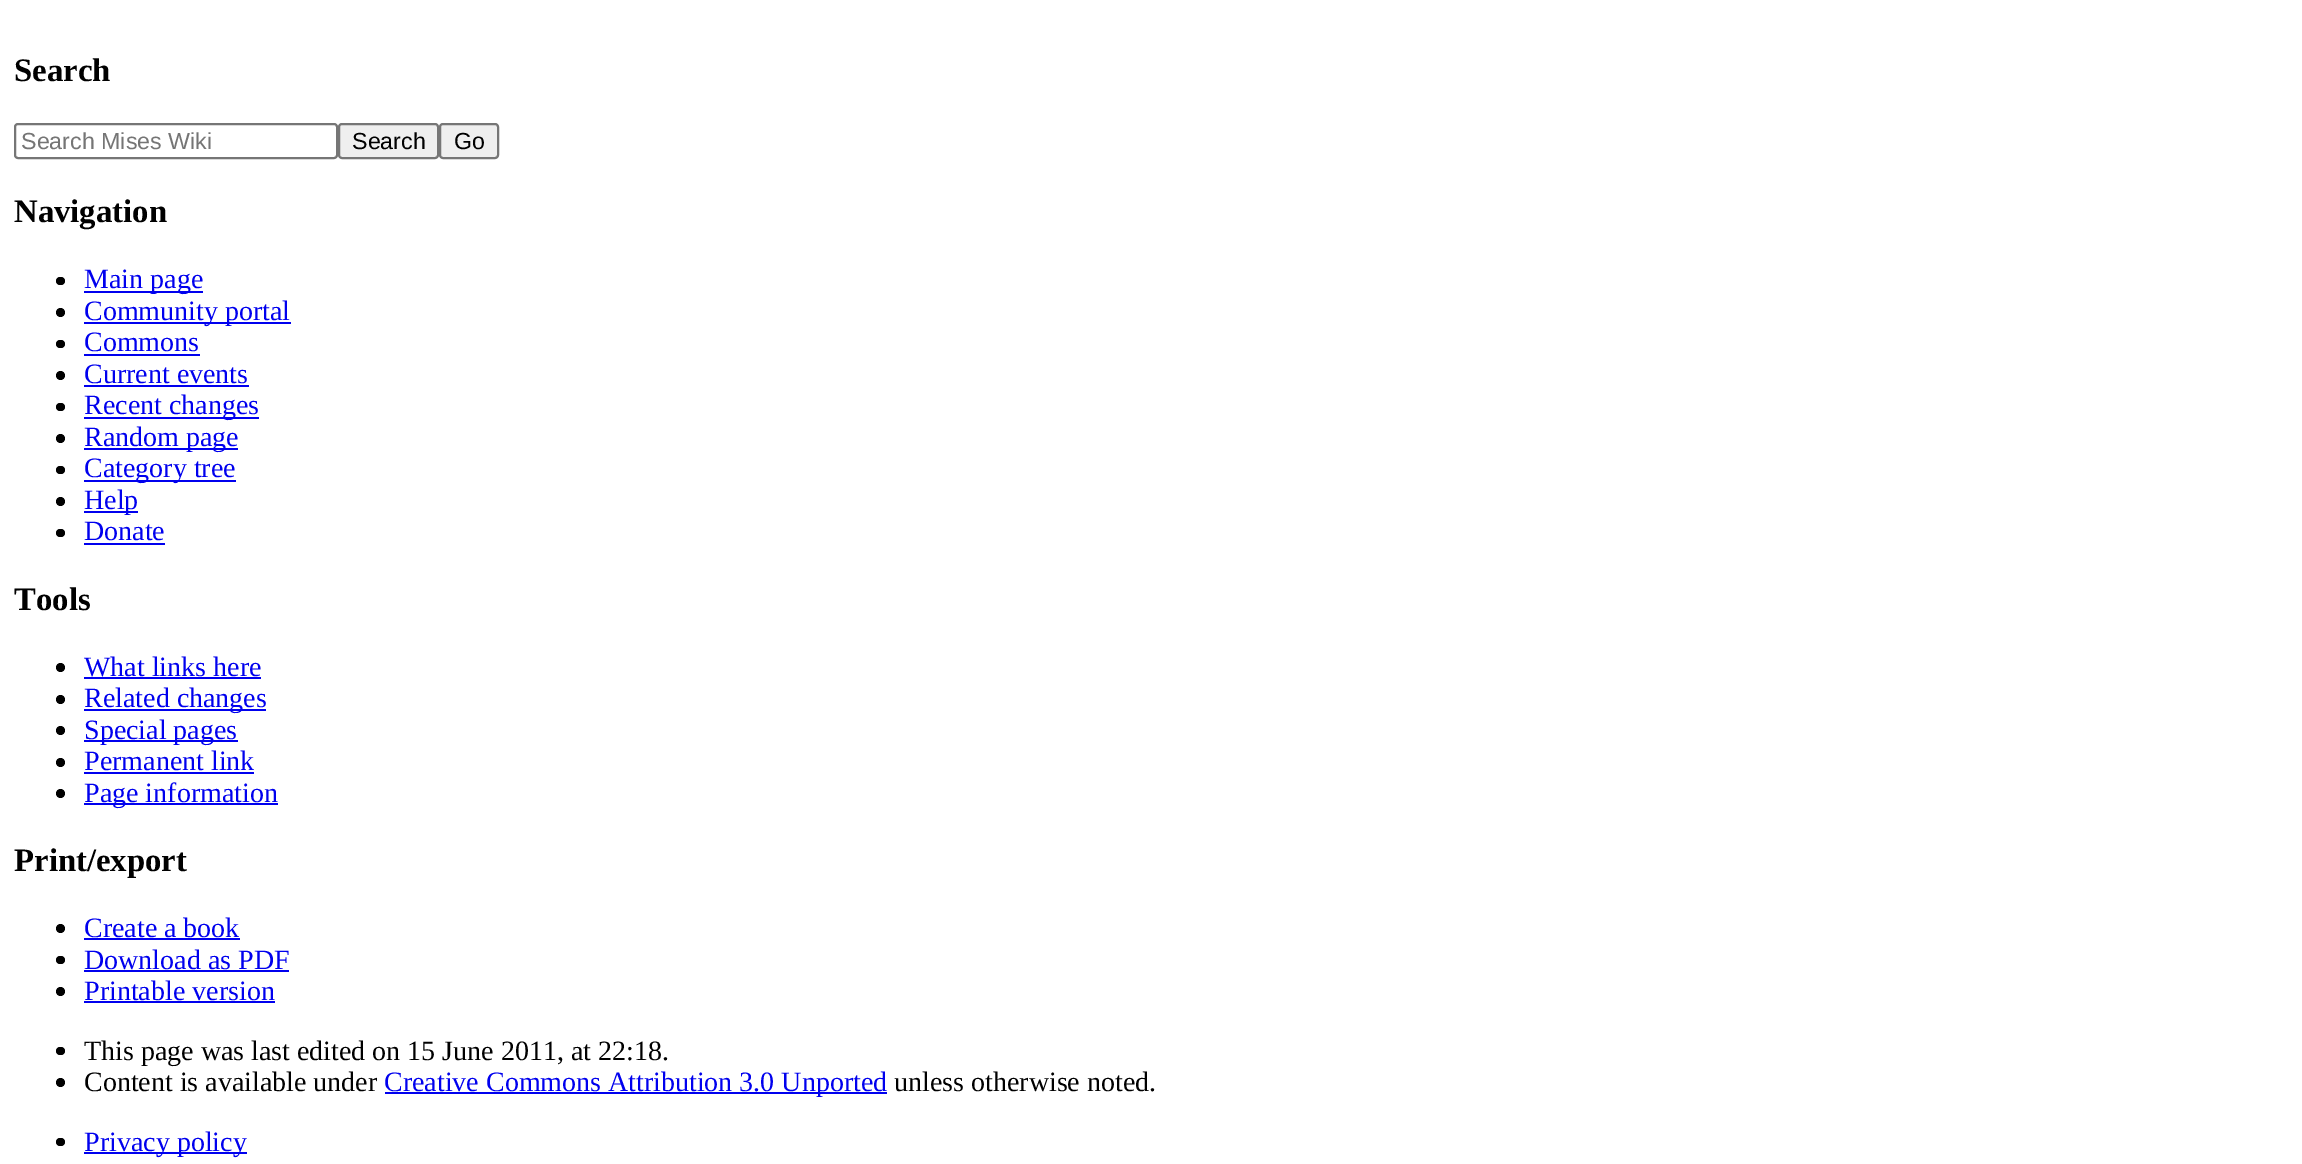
%!PS
<< /PageSize [2302 1164] >> setpagedevice
/roundrect { 5 dict begin { /r /h /w /y /x } { exch def } forall
  x r add y moveto x w add y 2 copy h add r arct x w add y h add x 1 index r arct
  x y h add x y r arct x y 2 copy exch w add exch r arct closepath end } def
0 1164 translate 1 -1 scale
4 setmiterlimit
1 setgray
0 0 2302 1164 rectfill
/LiberationSerif-Bold [32.75 0 0 -32.75 0 0] selectfont
0 setgray
14 81 moveto (Search) show
0.463 setgray
2 setlinewidth
15 124 322 34 3 roundrect stroke
/LiberationSans-Regular [23.25 0 0 -23.25 0 0] selectfont
0.459 setgray
21 149 moveto (Search Mises Wiki) show
0.937 setgray
339 124 99 34 3 roundrect gsave fill grestore
0.463 setgray
stroke
0 setgray
352 149 moveto (Search) show
0.937 setgray
440 124 58 34 3 roundrect gsave fill grestore
0.463 setgray
stroke
0 setgray
454 149 moveto (Go) show
/LiberationSerif-Bold [32.75 0 0 -32.75 0 0] selectfont
14 222 moveto (Navigation) show
56 277 9 8 4 roundrect fill
0 0 0.933 setrgbcolor
84 291 119 2 rectfill
/LiberationSerif-Regular [28 0 0 -28 0 0] selectfont
84 288 moveto (Main page) show
0 setgray
newpath 60.5 312.5 4.5 0 360 arc closepath fill
0 0 0.933 setrgbcolor
84 322 207 2 rectfill
84 320 moveto (Community portal) show
0 setgray
56 340 9 8 4 roundrect fill
0 0 0.933 setrgbcolor
84 351 moveto (Commons) show
84 354 116 2 rectfill
0 setgray
newpath 60.5 375.5 4.5 0 360 arc closepath fill
0 0 0.933 setrgbcolor
84 383 moveto (Current events) show
84 385 165 2 rectfill
0 setgray
56 403 9 8 4 roundrect fill
0 0 0.933 setrgbcolor
84 417 175 2 rectfill
84 414 moveto (Recent changes) show
0 setgray
newpath 60.5 438.5 4.5 0 360 arc closepath fill
0 0 0.933 setrgbcolor
84 448 154 2 rectfill
84 446 moveto (Random page) show
0 setgray
56 466 9 8 4 roundrect fill
0 0 0.933 setrgbcolor
84 480 152 2 rectfill
84 477 moveto (Category tree) show
0 setgray
newpath 60.5 501.5 4.5 0 360 arc closepath fill
0 0 0.933 setrgbcolor
84 511 54 2 rectfill
84 509 moveto (Help) show
0 setgray
56 529 9 8 4 roundrect fill
0 0 0.933 setrgbcolor
84 540 moveto (Donate) show
84 543 81 2 rectfill
/LiberationSerif-Bold [32.75 0 0 -32.75 0 0] selectfont
0 setgray
14 610 moveto (Tools) show
newpath 60.5 667.5 4.5 0 360 arc closepath fill
/LiberationSerif-Regular [28 0 0 -28 0 0] selectfont
0 0 0.933 setrgbcolor
84 676 moveto (What links here) show
84 677 177 2 rectfill
0 setgray
newpath 60.5 699.5 4.5 0 360 arc closepath fill
0 0 0.933 setrgbcolor
84 709 182 2 rectfill
84 707 moveto (Related changes) show
0 setgray
newpath 60.5 730.5 4.5 0 360 arc closepath fill
0 0 0.933 setrgbcolor
84 740 154 2 rectfill
84 739 moveto (Special pages) show
0 setgray
newpath 60.5 762.5 4.5 0 360 arc closepath fill
0 0 0.933 setrgbcolor
84 770 moveto (Permanent link) show
84 772 170 2 rectfill
0 setgray
newpath 60.5 793.5 4.5 0 360 arc closepath fill
0 0 0.933 setrgbcolor
84 803 194 2 rectfill
84 802 moveto (Page information) show
/LiberationSerif-Bold [32.75 0 0 -32.75 0 0] selectfont
0 setgray
14 871 moveto (Print/export) show
newpath 60.5 928.5 4.5 0 360 arc closepath fill
/LiberationSerif-Regular [28 0 0 -28 0 0] selectfont
0 0 0.933 setrgbcolor
84 937 moveto (Create a book) show
84 938 156 2 rectfill
0 setgray
56 956 9 8 4 roundrect fill
0 0 0.933 setrgbcolor
84 969 moveto (Download as PDF) show
84 970 205 2 rectfill
0 setgray
newpath 60.5 991.5 4.5 0 360 arc closepath fill
0 0 0.933 setrgbcolor
84 1000 moveto (Printable version) show
84 1001 191 2 rectfill
0 setgray
56 1047 9 8 4 roundrect fill
84 1060 moveto (This page was last edited on 15 June 2011, at 22:18.) show
newpath 60.5 1082.5 4.5 0 360 arc closepath fill
84 1091 moveto (Content is available under) show
0 0 0.933 setrgbcolor
385 1092 502 2 rectfill
384 1091 moveto (Creative Commons Attribution 3.0 Unported) show
0 setgray
894 1091 moveto (unless otherwise noted.) show
56 1138 9 8 4 roundrect fill
0 0 0.933 setrgbcolor
84 1152 163 2 rectfill
84 1151 moveto (Privacy policy) show
showpage
